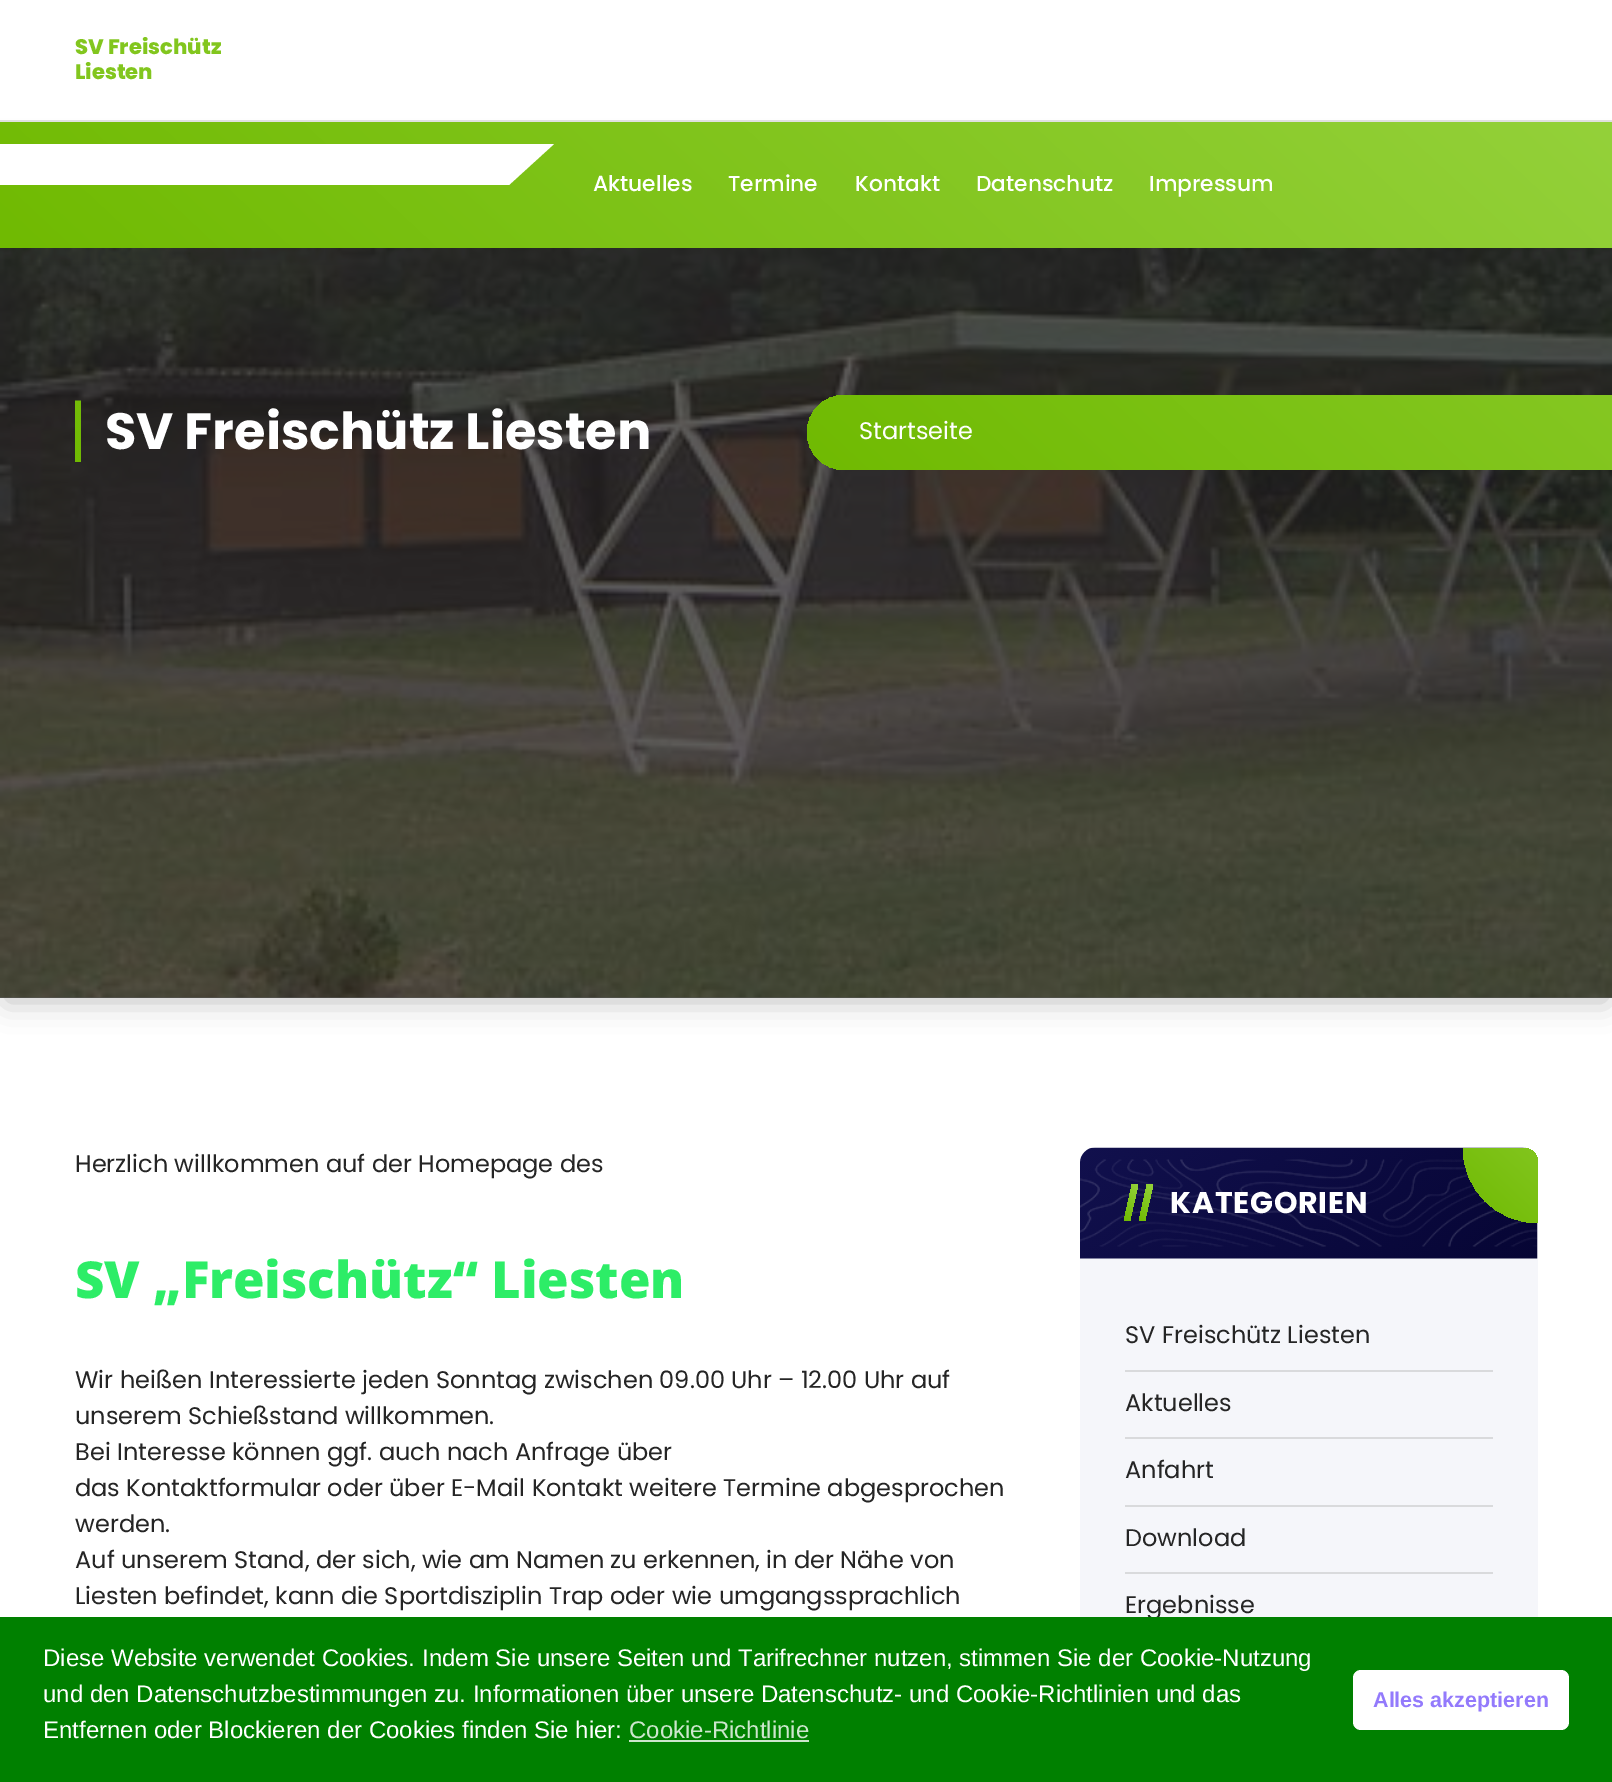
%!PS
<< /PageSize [1612 1782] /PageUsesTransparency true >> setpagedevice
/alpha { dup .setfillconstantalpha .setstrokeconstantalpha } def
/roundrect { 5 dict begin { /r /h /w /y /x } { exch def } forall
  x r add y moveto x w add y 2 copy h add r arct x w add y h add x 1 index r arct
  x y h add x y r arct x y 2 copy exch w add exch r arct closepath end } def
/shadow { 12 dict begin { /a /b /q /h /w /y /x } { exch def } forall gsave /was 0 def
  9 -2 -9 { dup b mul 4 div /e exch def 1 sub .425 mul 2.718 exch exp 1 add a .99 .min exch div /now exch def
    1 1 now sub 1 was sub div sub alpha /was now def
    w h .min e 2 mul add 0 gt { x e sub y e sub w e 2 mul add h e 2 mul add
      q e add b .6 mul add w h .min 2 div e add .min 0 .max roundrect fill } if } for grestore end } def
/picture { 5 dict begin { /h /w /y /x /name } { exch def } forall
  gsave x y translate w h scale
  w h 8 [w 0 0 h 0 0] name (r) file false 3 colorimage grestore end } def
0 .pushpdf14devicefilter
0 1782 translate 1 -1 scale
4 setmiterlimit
1 setgray
0 0 1612 1782 rectfill
0.882 setgray
0 120 1612 2 rectfill
/Poppins-ExtraBold [21 0 0 -21 0 0] selectfont
0.51 0.776 0.118 setrgbcolor
75 54 moveto (SV Freischütz) show
75 79 moveto (Liesten) show
0 setgray
6 263 1601 738 0 15 0.25 shadow
(img1.rgb) 0 248 1612 750 picture
0.75 alpha
0.145 setgray
0 248 1612 750 rectfill
1 alpha
0 setgray
0 137 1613 126 0 11 0.05 shadow
gsave newpath 0 122 moveto 1612 122 lineto 1612 248 lineto 0 248 lineto closepath clip newpath
<< /ShadingType 2 /ColorSpace /DeviceRGB /Coords [1213 -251 400 620] /Extend [true true] /Function << /FunctionType 2 /Domain [0 1] /C0 [0.58 0.82 0.227] /C1 [0.439 0.729 0.008] /N 1 >> >> shfill grestore
1 setgray
newpath -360 144 moveto -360 185 lineto 509 185 lineto 554 144 lineto closepath fill
/Poppins-Medium [21.75 0 0 -21.75 0 0] selectfont
593 191 moveto (Aktuelles) show
728 191 moveto (Termine) show
855 191 moveto (Kontakt) show
976 191 moveto (Datenschutz) show
1149 191 moveto (Impressum) show
(img2.rgb) 75 400 6 62 picture
/Poppins-Bold [51 0 0 -51 0 0] selectfont
105 449 moveto (SV Freischütz Liesten) show
gsave newpath 844.5 395 moveto 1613 395 lineto 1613 470 lineto 844.5 470 lineto 824 470 807 453 807 432.5 curveto 807 412 824 395 844.5 395 curveto closepath clip newpath
<< /ShadingType 2 /ColorSpace /DeviceRGB /Coords [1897 47 1179 817] /Extend [true true] /Function << /FunctionType 2 /Domain [0 1] /C0 [0.58 0.82 0.227] /C1 [0.439 0.729 0.008] /N 1 >> >> shfill grestore
/Poppins-Regular [24 0 0 -24 0 0] selectfont
859 439 moveto (Startseite) show
0.145 setgray
75 1172 moveto (Herzlich willkommen auf der Homepage des) show
/NotoSans-Black [51 0 0 -51 0 0] selectfont
0.176 0.929 0.404 setrgbcolor
75 1298 moveto (SV „Freischütz“ Liesten) show
/Poppins-Regular [24 0 0 -24 0 0] selectfont
0.145 setgray
75 1388 moveto (Wir heißen Interessierte jeden Sonntag zwischen 09.00 Uhr – 12.00 Uhr auf) show
75 1424 moveto (unserem Schießstand willkommen.) show
75 1460 moveto (Bei Interesse können ggf. auch nach Anfrage über) show
75 1496 moveto (das Kontaktformular oder über E-Mail Kontakt weitere Termine abgesprochen) show
75 1532 moveto (werden.) show
75 1568 moveto (Auf unserem Stand, der sich, wie am Namen zu erkennen, in der Nähe von) show
75 1604 moveto (Liesten befindet, kann die Sportdisziplin Trap oder wie umgangssprachlich) show
0.961 0.965 0.98 setrgbcolor
1080 1148 458 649 15 roundrect fill
(img3.rgb) 1080 1147 458 112 picture
gsave newpath 1132 1184.5 moveto 1138 1184.5 lineto 1130 1220.5 lineto 1124 1220.5 lineto closepath clip newpath
<< /ShadingType 2 /ColorSpace /DeviceRGB /Coords [1144 1191 1118 1214] /Extend [true true] /Function << /FunctionType 2 /Domain [0 1] /C0 [0.58 0.82 0.227] /C1 [0.439 0.729 0.008] /N 1 >> >> shfill grestore
gsave newpath 1147 1184.5 moveto 1153 1184.5 lineto 1145 1220.5 lineto 1139 1220.5 lineto closepath clip newpath
<< /ShadingType 2 /ColorSpace /DeviceRGB /Coords [1159 1191 1133 1214] /Extend [true true] /Function << /FunctionType 2 /Domain [0 1] /C0 [0.58 0.82 0.227] /C1 [0.439 0.729 0.008] /N 1 >> >> shfill grestore
/Poppins-Bold [30 0 0 -30 0 0] selectfont
1 setgray
1170 1213 moveto 0.75 0 (KATEGORIEN) ashow
gsave newpath 1463 1148 moveto 1523 1148 lineto 1531.5 1148 1538 1154.5 1538 1163 curveto 1538 1223 lineto 1496.5 1223 1463 1189.5 1463 1148 curveto closepath clip newpath
<< /ShadingType 2 /ColorSpace /DeviceRGB /Coords [1610 1070 1465 1225] /Extend [true true] /Function << /FunctionType 2 /Domain [0 1] /C0 [0.58 0.82 0.227] /C1 [0.439 0.729 0.008] /N 1 >> >> shfill grestore
0.851 0.855 0.863 setrgbcolor
1125 1370 368 2 rectfill
/Poppins-Regular [24 0 0 -24 0 0] selectfont
0.145 setgray
1125 1343 moveto (SV Freischütz Liesten) show
0.851 0.855 0.863 setrgbcolor
1125 1437 368 2 rectfill
0.145 setgray
1125 1411 moveto (Aktuelles) show
0.851 0.855 0.863 setrgbcolor
1125 1505 368 2 rectfill
0.145 setgray
1125 1478 moveto (Anfahrt) show
0.851 0.855 0.863 setrgbcolor
1125 1572 368 2 rectfill
0.145 setgray
1125 1546 moveto (Download) show
1125 1613 moveto (Ergebnisse) show
0 0.502 0 setrgbcolor
0 1617 1612 165 rectfill
/LiberationSans-Regular [24 0 0 -24 0 0] selectfont
1 setgray
43 1666 moveto (Diese Website verwendet Cookies. Indem Sie unsere Seiten und Tarifrechner nutzen, stimmen Sie der Cookie-Nutzung) show
43 1702 moveto (und den Datenschutzbestimmungen zu. Informationen über unsere Datenschutz- und Cookie-Richtlinien und das) show
43 1738 moveto (Entfernen oder Blockieren der Cookies finden Sie hier:) show
0.8 0.902 0.8 setrgbcolor
629 1738 moveto (Cookie-Richtlinie) show
629 1740 180 2 rectfill
1 setgray
1353 1670 216 60 8 roundrect fill
/LiberationSans-Bold [21.5 0 0 -21.5 0 0] selectfont
0.576 0.478 0.988 setrgbcolor
1373 1707 moveto (Alles akzeptieren) show
.poppdf14devicefilter showpage
